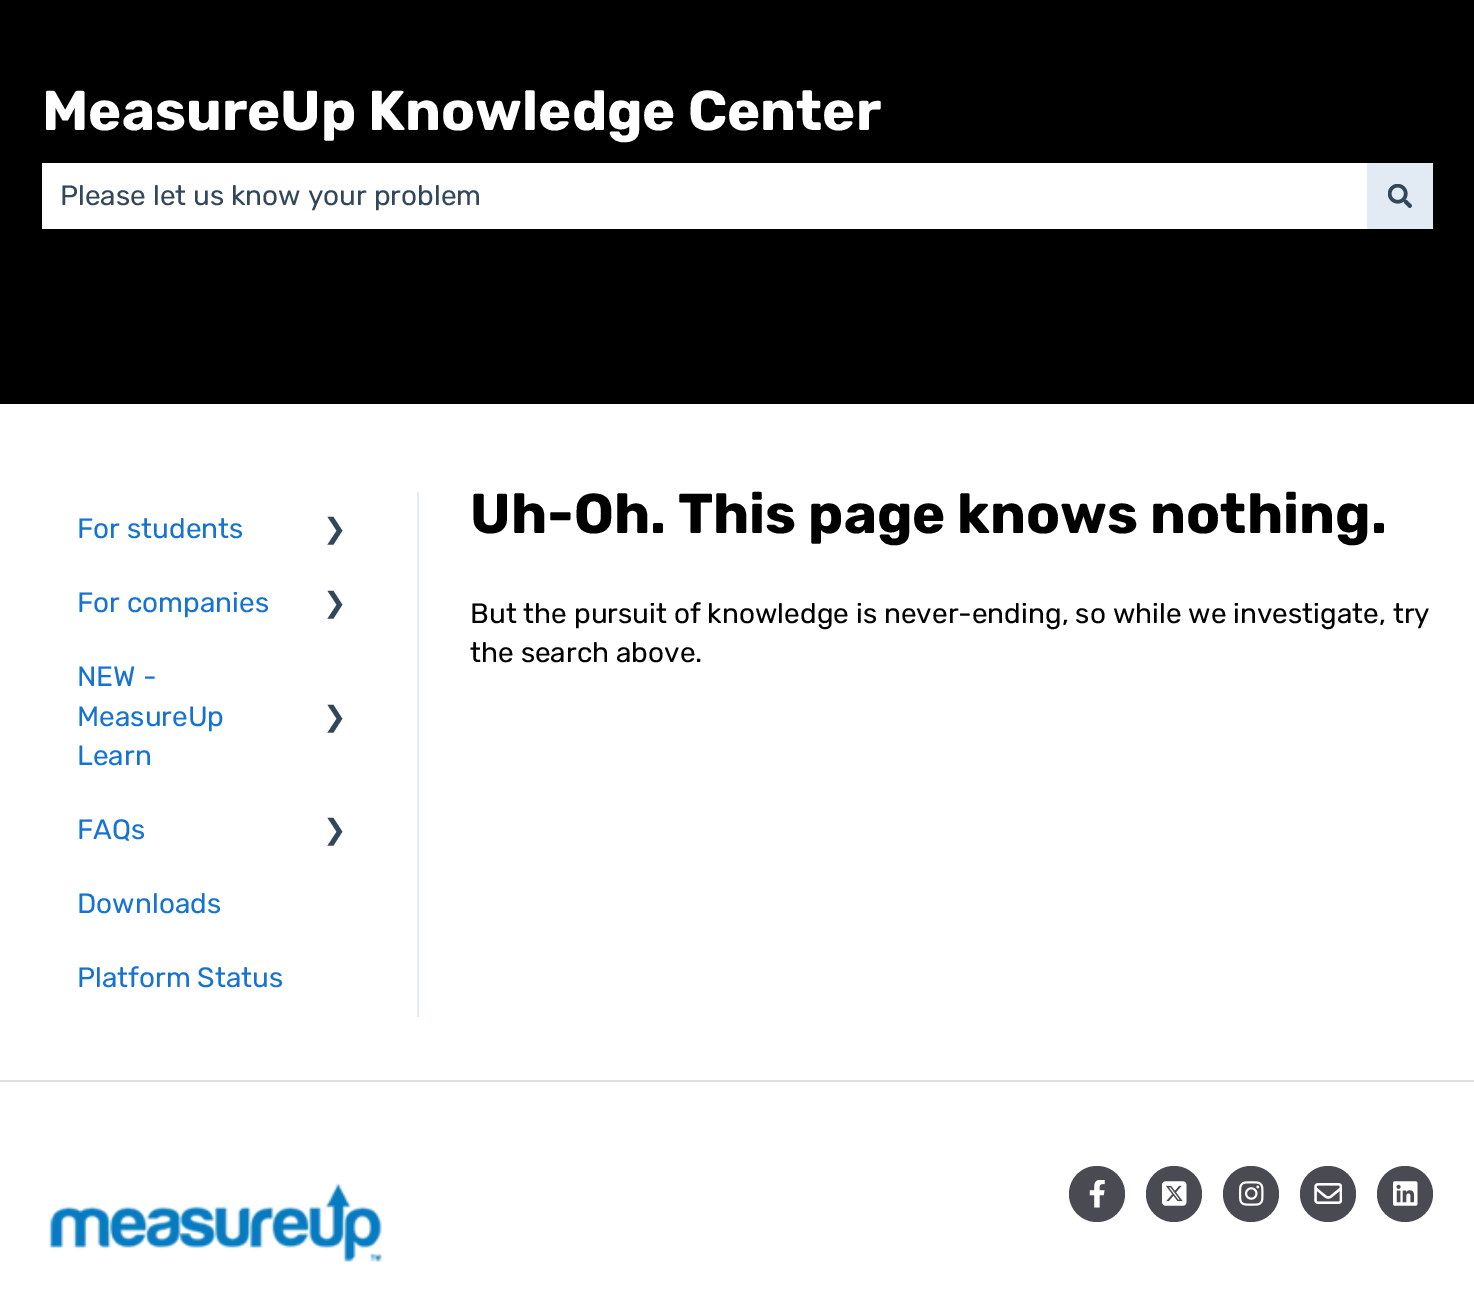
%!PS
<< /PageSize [1474 1294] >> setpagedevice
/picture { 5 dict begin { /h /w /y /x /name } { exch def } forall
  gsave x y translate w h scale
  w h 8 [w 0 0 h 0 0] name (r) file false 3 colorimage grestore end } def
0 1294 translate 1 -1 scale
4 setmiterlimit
1 setgray
0 0 1474 1294 rectfill
0 setgray
0 0 1474 404 rectfill
/Rubik-Bold [56 0 0 -56 0 0] selectfont
1 setgray
42 130 moveto (MeasureUp Knowledge Center) show
42 163 1325 66 rectfill
/Rubik-Regular [28 0 0 -28 0 0] selectfont
0.2 0.278 0.357 setrgbcolor
60 205 moveto (Please let us know your problem) show
0.886 0.922 0.957 setrgbcolor
1367 163 66 66 rectfill
(img1.rgb) 1388 184 24 24 picture
417 492 2 525 rectfill
0.09 0.451 0.82 setrgbcolor
77 538 moveto (For students) show
/DejaVuSans-Regular [28 0 0 -28 0 0] selectfont
0.2 0.278 0.357 setrgbcolor
323 538 moveto (❯) show
/Rubik-Regular [28 0 0 -28 0 0] selectfont
0.09 0.451 0.82 setrgbcolor
77 612 moveto (For companies) show
/DejaVuSans-Regular [28 0 0 -28 0 0] selectfont
0.2 0.278 0.357 setrgbcolor
323 612 moveto (❯) show
/Rubik-Regular [28 0 0 -28 0 0] selectfont
0.09 0.451 0.82 setrgbcolor
77 686 moveto (NEW -) show
77 726 moveto (MeasureUp) show
77 765 moveto (Learn) show
/DejaVuSans-Regular [28 0 0 -28 0 0] selectfont
0.2 0.278 0.357 setrgbcolor
323 726 moveto (❯) show
/Rubik-Regular [28 0 0 -28 0 0] selectfont
0.09 0.451 0.82 setrgbcolor
77 839 moveto (FAQs) show
/DejaVuSans-Regular [28 0 0 -28 0 0] selectfont
0.2 0.278 0.357 setrgbcolor
323 839 moveto (❯) show
/Rubik-Regular [28 0 0 -28 0 0] selectfont
0.09 0.451 0.82 setrgbcolor
77 913 moveto (Downloads) show
77 987 moveto (Platform Status) show
/Rubik-Bold [56 0 0 -56 0 0] selectfont
0 setgray
470 533 moveto (Uh-Oh. This page knows nothing.) show
/Rubik-Regular [28 0 0 -28 0 0] selectfont
470 623 moveto (But the pursuit of knowledge is never-ending, so while we investigate, try) show
470 662 moveto (the search above.) show
0.878 setgray
0 1080 1474 2 rectfill
(img2.rgb) 49 1183 333 79 picture
0.286 0.29 0.322 setrgbcolor
newpath 1097 1194 28 0 360 arc closepath fill
(img3.rgb) 1089 1180 16 28 picture
newpath 1174 1194 28 0 360 arc closepath fill
(img4.rgb) 1162 1181 25 25 picture
newpath 1251 1194 28 0 360 arc closepath fill
(img5.rgb) 1239 1181 25 25 picture
newpath 1328 1194 28 0 360 arc closepath fill
(img6.rgb) 1314 1183 28 21 picture
newpath 1405 1194 28 0 360 arc closepath fill
(img7.rgb) 1393 1181 25 25 picture
showpage
